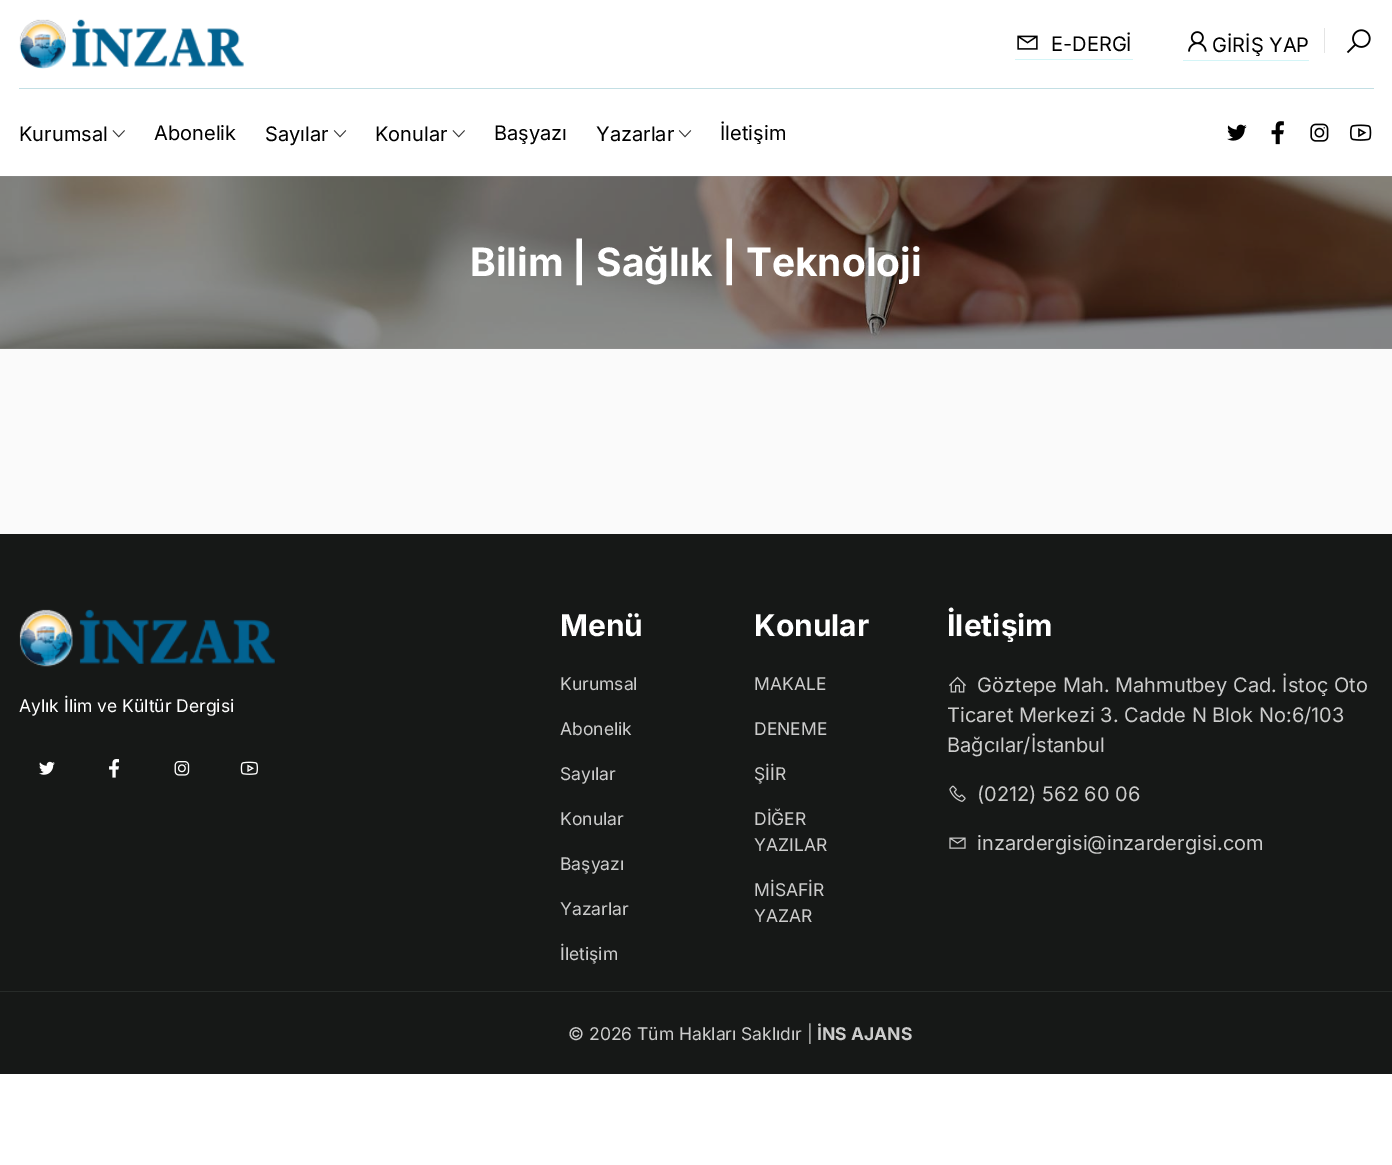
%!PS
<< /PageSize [1392 1165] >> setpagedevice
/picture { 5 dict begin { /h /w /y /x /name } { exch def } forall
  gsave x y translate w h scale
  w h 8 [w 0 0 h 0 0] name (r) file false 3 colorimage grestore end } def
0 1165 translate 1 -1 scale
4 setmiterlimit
1 setgray
0 0 1392 1165 rectfill
0.765 0.875 0.894 setrgbcolor
19 88 1355 1 rectfill
(img1.rgb) 19 19 225 50 picture
0.831 0.961 0.969 setrgbcolor
1015 59 118 1 rectfill
(img2.rgb) 1017 35 21 15 picture
/Inter-Regular [20 0 0 -20 0 0] selectfont
0 setgray
1051 51 moveto (E-DERGİ) show
0.831 0.961 0.969 setrgbcolor
1183 60 126 1 rectfill
(img3.rgb) 1188 31 19 21 picture
0 setgray
1212 52 moveto (GİRİŞ YAP) show
0.894 setgray
1324 28 1 25 rectfill
(img4.rgb) 1346 29 25 25 picture
0 setgray
19 141 moveto (Kurumsal) show
(img5.rgb) 112 130 13 8 picture
154 140 moveto (Abonelik) show
265 141 moveto (Sayılar) show
(img6.rgb) 333 130 14 8 picture
375 141 moveto (Konular) show
(img5.rgb) 452 130 13 8 picture
494 140 moveto (Başyazı) show
596 141 moveto (Yazarlar) show
(img6.rgb) 678 130 14 8 picture
720 140 moveto (İletişim) show
(img7.rgb) 1227 124 20 17 picture
(img8.rgb) 1271 121 13 24 picture
(img9.rgb) 1310 123 19 19 picture
(img10.rgb) 1349 124 23 17 picture
(img11.rgb) 0 176 1392 173 picture
/Inter-Bold [39 0 0 -39 0 0] selectfont
1 setgray
470 276 moveto (Bilim | Sağlık | Teknoloji) show
0.98 setgray
0 349 1392 185 rectfill
0.086 0.094 0.09 setrgbcolor
0 534 1392 540 rectfill
(img12.rgb) 19 609 256 58 picture
/Inter-Regular [17.5 0 0 -17.5 0 0] selectfont
1 setgray
19 712 moveto (Aylık İlim ve Kültür Dergisi) show
(img13.rgb) 39 761 16 14 picture
(img14.rgb) 109 759 11 19 picture
(img15.rgb) 174 761 16 15 picture
(img16.rgb) 240 761 18 14 picture
/Inter-Bold [30 0 0 -30 0 0] selectfont
560 636 moveto (Menü) show
/Inter-Regular [17.5 0 0 -17.5 0 0] selectfont
0.8 setgray
560 690 moveto (Kurumsal) show
560 735 moveto (Abonelik) show
560 780 moveto (Sayılar) show
560 825 moveto (Konular) show
560 870 moveto (Başyazı) show
560 915 moveto (Yazarlar) show
560 960 moveto (İletişim) show
/Inter-Bold [30 0 0 -30 0 0] selectfont
1 setgray
754 636 moveto (Konular) show
/Inter-Regular [17.5 0 0 -17.5 0 0] selectfont
0.8 setgray
754 690 moveto (MAKALE) show
754 735 moveto (DENEME) show
754 780 moveto (ŞİİR) show
754 825 moveto (DİĞER) show
754 851 moveto (YAZILAR) show
754 896 moveto (MİSAFİR) show
754 922 moveto (YAZAR) show
/Inter-Bold [30 0 0 -30 0 0] selectfont
1 setgray
947 636 moveto (İletişim) show
/Inter-Regular [20 0 0 -20 0 0] selectfont
0.8 setgray
977 692 moveto (Göztepe Mah. Mahmutbey Cad. İstoç Oto) show
947 722 moveto (Ticaret Merkezi 3. Cadde N Blok No:6/103) show
947 752 moveto (Bağcılar/İstanbul) show
(img17.rgb) 949 676 17 17 picture
(img18.rgb) 949 785 17 17 picture
977 801 moveto (\(0212\) 562 60 06) show
(img19.rgb) 949 837 17 12 picture
977 850 moveto (inzardergisi@inzardergisi.com) show
0.153 0.169 0.161 setrgbcolor
0 991 1392 1 rectfill
/Inter-Regular [17.5 0 0 -17.5 0 0] selectfont
0.8 setgray
568 1040 moveto (© 2026 Tüm Hakları Saklıdır |) show
/Inter-Bold [17.5 0 0 -17.5 0 0] selectfont
817 1040 moveto (İNS AJANS) show
showpage
